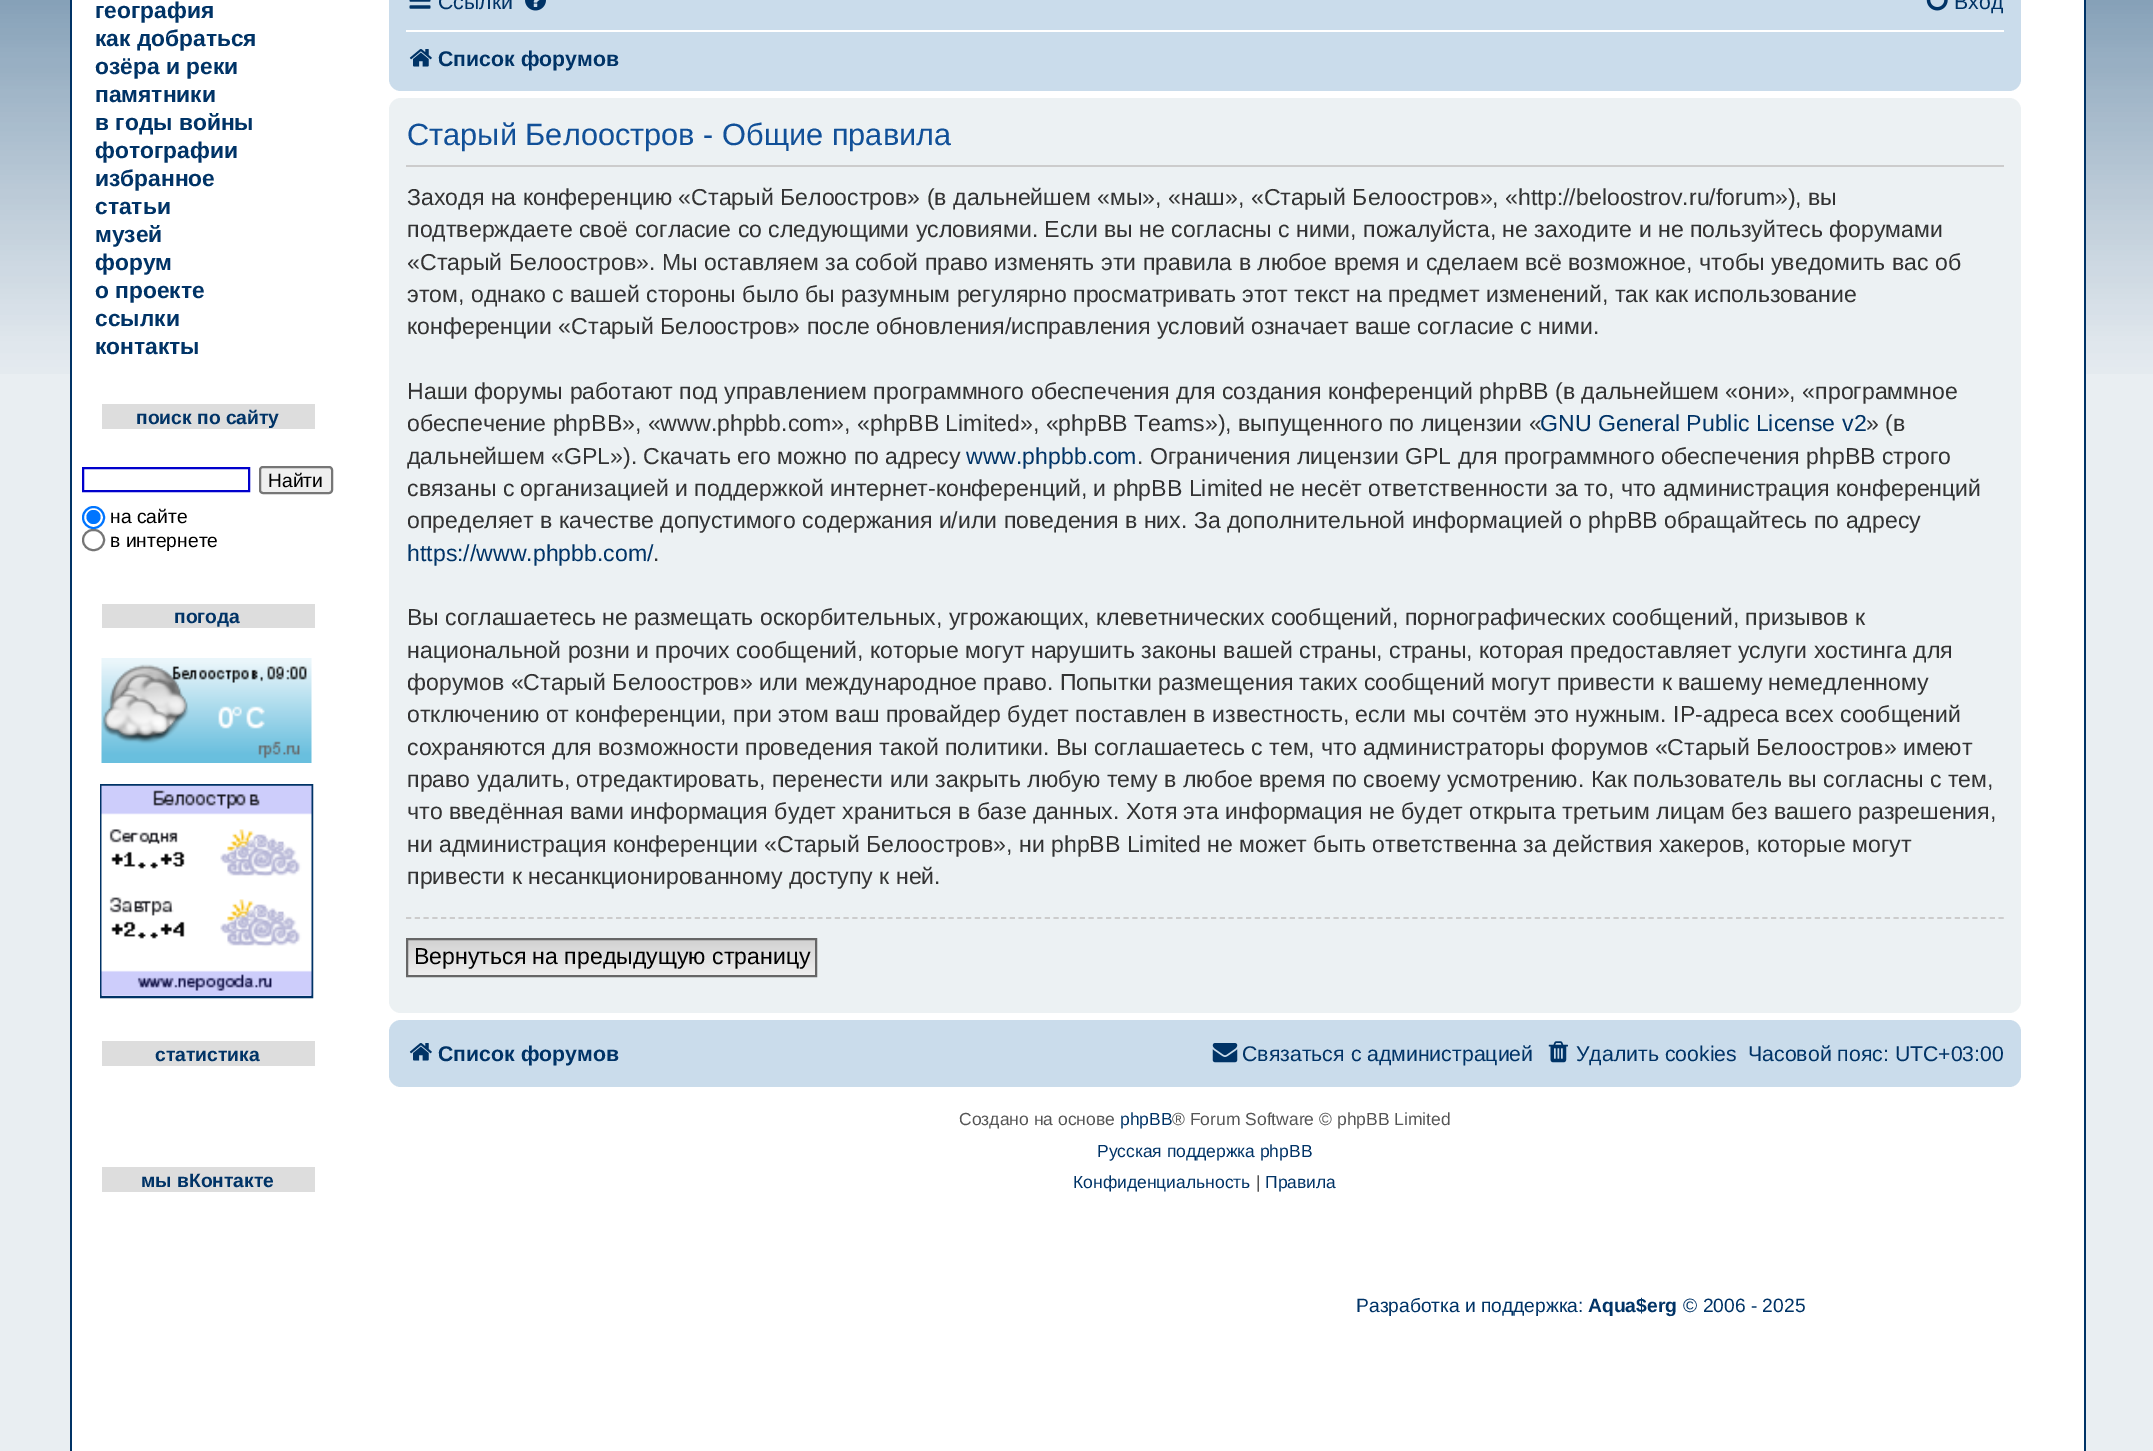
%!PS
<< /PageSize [2153 1451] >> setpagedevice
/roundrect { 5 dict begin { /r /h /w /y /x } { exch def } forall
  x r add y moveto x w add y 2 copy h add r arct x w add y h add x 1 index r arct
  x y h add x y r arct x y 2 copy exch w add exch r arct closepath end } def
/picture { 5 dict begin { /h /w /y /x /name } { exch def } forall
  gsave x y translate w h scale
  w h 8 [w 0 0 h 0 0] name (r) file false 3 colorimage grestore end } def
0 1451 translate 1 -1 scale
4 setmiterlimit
0.914 0.933 0.949 setrgbcolor
0 0 2153 1451 rectfill
(img1.rgb) 0 0 2153 374 picture
1 setgray
72 0 2012 1451 rectfill
0 0.2 0.4 setrgbcolor
2084 0 2 1451 rectfill
70 0 2 1451 rectfill
/LiberationSans-Bold [22.75 0 0 -22.75 0 0] selectfont
95 18 moveto (география) show
95 46 moveto (как добраться) show
95 74 moveto (озёра и реки) show
95 102 moveto (памятники) show
95 130 moveto (в годы войны) show
95 158 moveto (фотографии) show
95 186 moveto (избранное) show
95 214 moveto (статьи) show
95 242 moveto (музей) show
95 270 moveto (форум) show
95 298 moveto (о проекте) show
95 326 moveto (ссылки) show
95 354 moveto (контакты) show
0.867 setgray
102 404 213 25 rectfill
/LiberationSans-Bold [19.25 0 0 -19.25 0 0] selectfont
0 0.2 0.4 setrgbcolor
136 424 moveto (поиск по сайту) show
0 0 0.8 setrgbcolor
2 setlinewidth
83 468 166 23 rectstroke
0.937 setgray
260 467 72 26 3 roundrect gsave fill grestore
0.463 setgray
stroke
/LiberationSans-Regular [19.25 0 0 -19.25 0 0] selectfont
0 setgray
268 487 moveto (Найти) show
0 0.459 1 setrgbcolor
newpath 93.5 517.5 10.5 0 360 arc closepath stroke
newpath 93.5 517 7 0 360 arc closepath fill
0 setgray
110 523 moveto (на сайте) show
0.463 setgray
83 530 21 20 10 roundrect stroke
0 setgray
110 547 moveto (в интернете) show
0.867 setgray
102 604 213 24 rectfill
/LiberationSans-Bold [19.25 0 0 -19.25 0 0] selectfont
0 0.2 0.4 setrgbcolor
174 623 moveto (погода) show
(img2.rgb) 101 658 211 105 picture
101 785 211 212 rectstroke
(img3.rgb) 101 785 211 211 picture
0.867 setgray
102 1041 213 25 rectfill
0 0.2 0.4 setrgbcolor
155 1061 moveto (статистика) show
0.867 setgray
102 1167 213 25 rectfill
0 0.2 0.4 setrgbcolor
141 1187 moveto (мы вКонтакте) show
0.792 0.863 0.922 setrgbcolor
389 -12 1632 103 12 roundrect fill
(img4.rgb) 409 0 22 9 picture
/LiberationSans-Regular [21.25 0 0 -21.25 0 0] selectfont
0 0.2 0.4 setrgbcolor
438 9 moveto (Ссылки) show
(img5.rgb) 525 0 21 11 picture
(img6.rgb) 1926 0 22 11 picture
1954 9 moveto (Вход) show
1 setgray
406 30 1598 2 rectfill
(img7.rgb) 409 49 23 18 picture
/LiberationSans-Bold [21.25 0 0 -21.25 0 0] selectfont
0 0.2 0.4 setrgbcolor
438 66 moveto (Список форумов) show
0.925 0.945 0.953 setrgbcolor
389 98 1632 915 12 roundrect fill
0.8 setgray
406 165 1598 2 rectfill
/LiberationSans-Regular [30.75 0 0 -30.75 0 0] selectfont
0.067 0.314 0.596 setrgbcolor
407 145 moveto (Старый Белоостров - Общие правила) show
/LiberationSans-Regular [23.1 0 0 -23.1 0 0] selectfont
0.2 setgray
407 205 moveto (Заходя на конференцию «Старый Белоостров» \(в дальнейшем «мы», «наш», «Старый Белоостров», «http://beloostrov.ru/forum»\), вы) show
407 237 moveto (подтверждаете своё согласие со следующими условиями. Если вы не согласны с ними, пожалуйста, не заходите и не пользуйтесь форумами) show
407 270 moveto («Старый Белоостров». Мы оставляем за собой право изменять эти правила в любое время и сделаем всё возможное, чтобы уведомить вас об) show
407 302 moveto (этом, однако с вашей стороны было бы разумным регулярно просматривать этот текст на предмет изменений, так как использование) show
407 334 moveto (конференции «Старый Белоостров» после обновления/исправления условий означает ваше согласие с ними.) show
407 399 moveto (Наши форумы работают под управлением программного обеспечения для создания конференций phpBB \(в дальнейшем «они», «программное) show
407 431 moveto (обеспечение phpBB», «www.phpbb.com», «phpBB Limited», «phpBB Teams»\), выпущенного по лицензии «) show
0 0.2 0.4 setrgbcolor
1540 431 moveto (GNU General Public License) show
1842 431 moveto (v2) show
0.2 setgray
1866 431 moveto (» \(в) show
407 464 moveto (дальнейшем «GPL»\). Скачать его можно по адресу) show
0 0.2 0.4 setrgbcolor
966 464 moveto (www.phpbb.com) show
0.2 setgray
1137 464 moveto (. Ограничения лицензии GPL для программного обеспечения phpBB строго) show
407 496 moveto (связаны с организацией и поддержкой интернет-конференций, и phpBB Limited не несёт ответственности за то, что администрация конференций) show
407 528 moveto (определяет в качестве допустимого содержания и/или поведения в них. За дополнительной информацией о phpBB обращайтесь по адресу) show
0 0.2 0.4 setrgbcolor
407 561 moveto (https://www.phpbb.com/) show
0.2 setgray
653 561 moveto (.) show
407 625 moveto -0.1 0 32 (Вы соглашаетесь не размещать оскорбительных, угрожающих, клеветнических сообщений, порнографических сообщений, призывов к) widthshow
407 658 moveto (национальной розни и прочих сообщений, которые могут нарушить законы вашей страны, страны, которая предоставляет услуги хостинга для) show
407 690 moveto (форумов «Старый Белоостров» или международное право. Попытки размещения таких сообщений могут привести к вашему немедленному) show
407 722 moveto (отключению от конференции, при этом ваш провайдер будет поставлен в известность, если мы сочтём это нужным. IP-адреса всех сообщений) show
407 755 moveto (сохраняются для возможности проведения такой политики. Вы соглашаетесь с тем, что администраторы форумов «Старый Белоостров» имеют) show
407 787 moveto (право удалить, отредактировать, перенести или закрыть любую тему в любое время по своему усмотрению. Как пользователь вы согласны с тем,) show
407 819 moveto (что введённая вами информация будет храниться в базе данных. Хотя эта информация не будет открыта третьим лицам без вашего разрешения,) show
407 852 moveto (ни администрация конференции «Старый Белоостров», ни phpBB Limited не может быть ответственна за действия хакеров, которые могут) show
407 884 moveto (привести к несанкционированному доступу к ней.) show
0.8 setgray
1.8 setlinewidth
[5.25 3.5] 0 setdash
newpath 406 918 moveto 2004 918 lineto stroke
gsave newpath 408 940 moveto 815 940 lineto 815 975 lineto 408 975 lineto closepath clip newpath
<< /ShadingType 2 /ColorSpace /DeviceRGB /Coords [612 940 612 975] /Extend [true true] /Function << /FunctionType 2 /Domain [0 1] /C0 [0.824 0.824 0.824] /C1 [0.937 0.937 0.937] /N 1 >> >> shfill grestore
0.4 setgray
2 setlinewidth
[] 0 setdash
407 939 409 37 rectstroke
0 setgray
414 964 moveto (Вернуться на предыдущую страницу) show
0.792 0.863 0.922 setrgbcolor
389 1020 1632 67 12 roundrect fill
(img7.rgb) 409 1043 23 18 picture
/LiberationSans-Bold [21.25 0 0 -21.25 0 0] selectfont
0 0.2 0.4 setrgbcolor
438 1061 moveto (Список форумов) show
(img8.rgb) 1212 1043 26 20 picture
/LiberationSans-Regular [21.25 0 0 -21.25 0 0] selectfont
1242 1061 moveto (Связаться с администрацией) show
(img9.rgb) 1548 1041 20 22 picture
1576 1061 moveto (Удалить cookies) show
1748 1061 moveto (Часовой пояс: UTC+03:00) show
/LiberationSans-Regular [17.5 0 0 -17.5 0 0] selectfont
0.333 setgray
959 1125 moveto (Создано на основе) show
0 0.2 0.4 setrgbcolor
1120 1125 moveto (phpBB) show
0.333 setgray
1172 1125 moveto (® Forum Software © phpBB Limited) show
0 0.2 0.4 setrgbcolor
1097 1157 moveto (Русская поддержка phpBB) show
1073 1188 moveto (Конфиденциальность) show
0.333 setgray
1256 1188 moveto (|) show
0 0.2 0.4 setrgbcolor
1265 1188 moveto (Правила) show
/LiberationSans-Regular [19.25 0 0 -19.25 0 0] selectfont
1356 1312 moveto (Разработка и поддержка:) show
/LiberationSans-Bold [19.25 0 0 -19.25 0 0] selectfont
1588 1312 moveto (Aqua$erg) show
/LiberationSans-Regular [19.25 0 0 -19.25 0 0] selectfont
1683 1312 moveto (© 2006 - 2025) show
showpage
